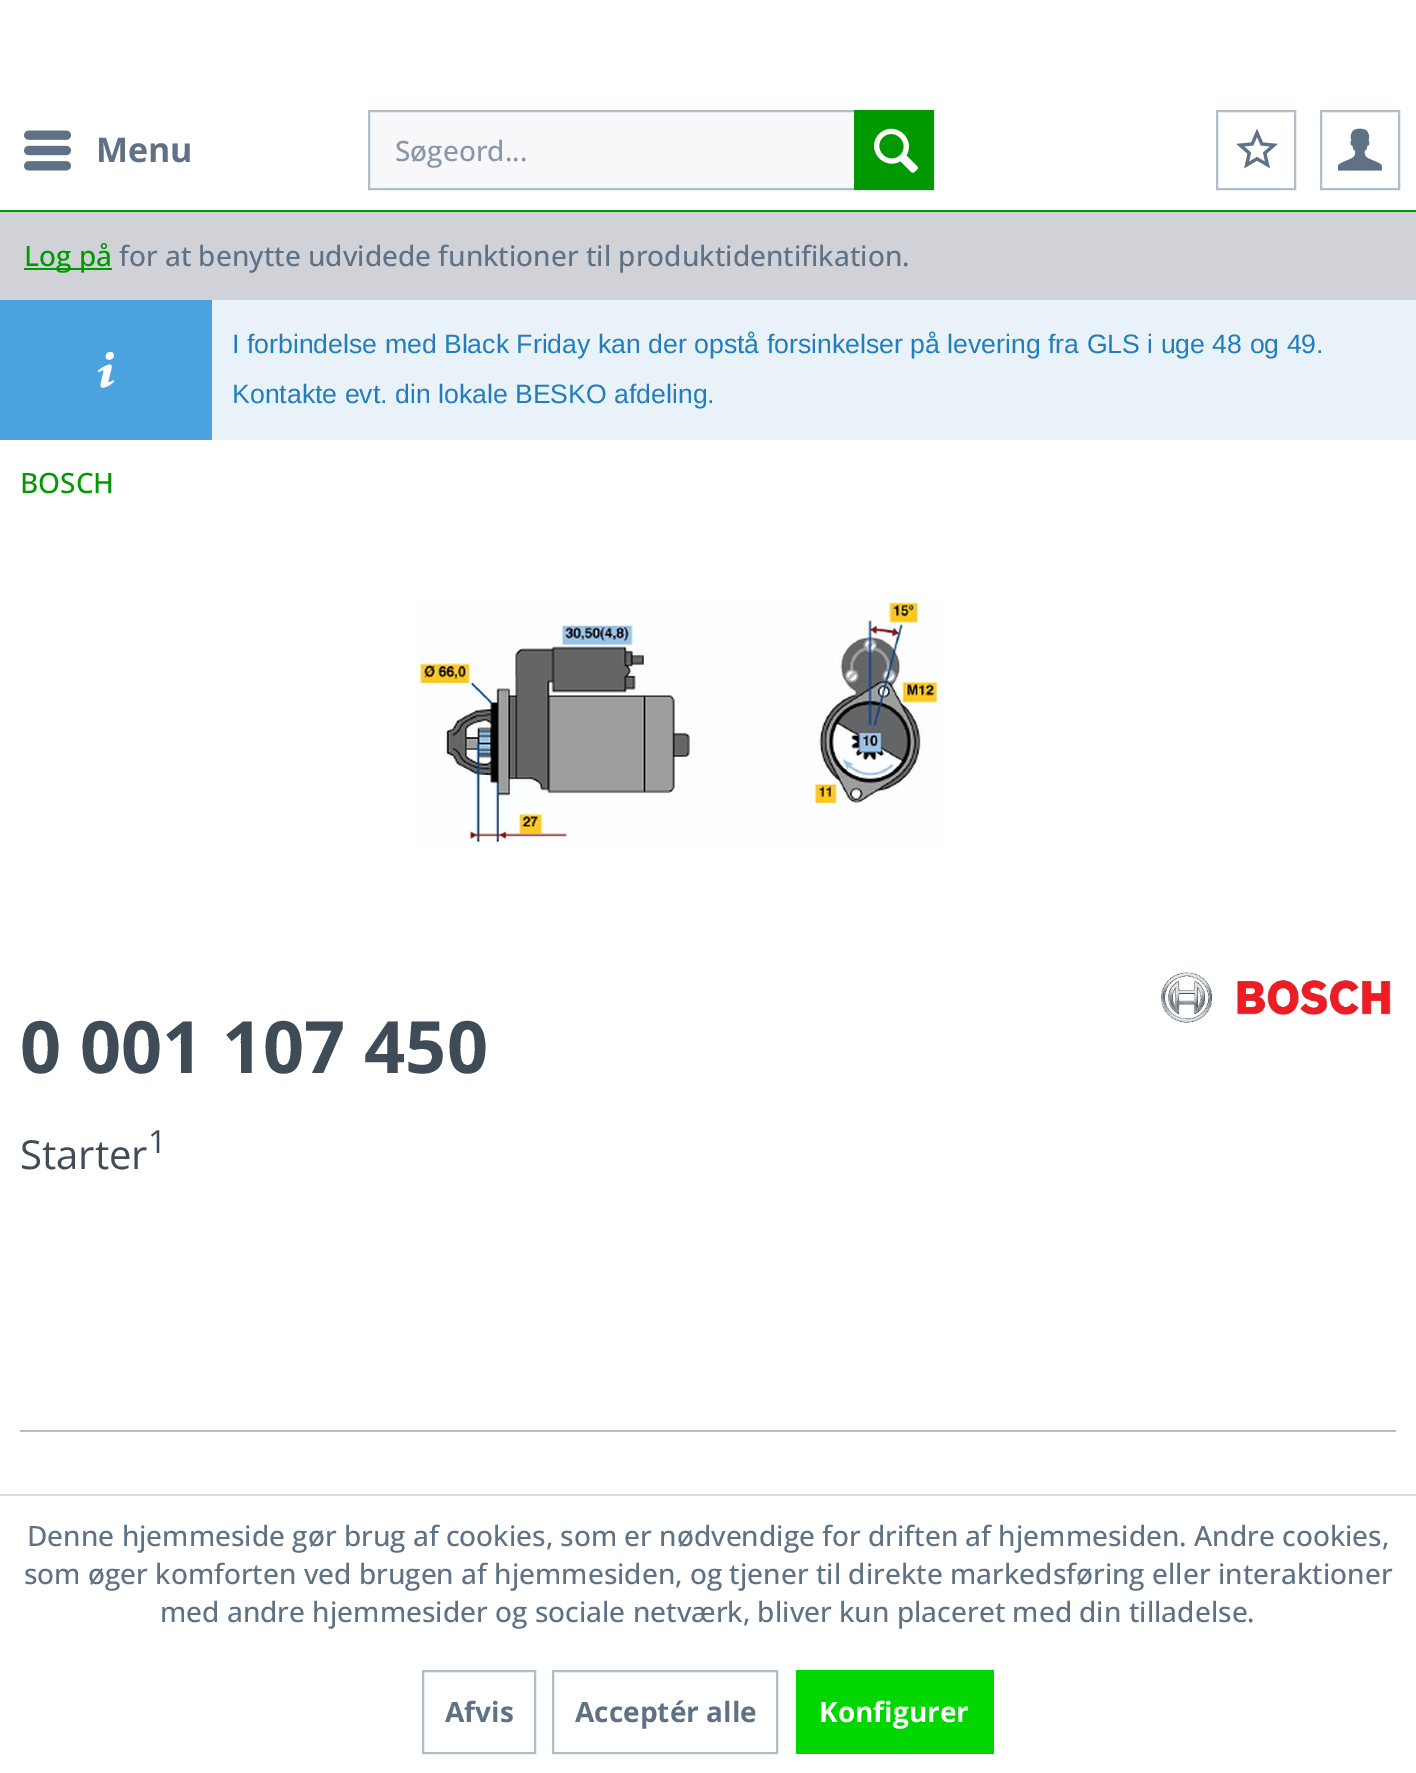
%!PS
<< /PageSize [1416 1773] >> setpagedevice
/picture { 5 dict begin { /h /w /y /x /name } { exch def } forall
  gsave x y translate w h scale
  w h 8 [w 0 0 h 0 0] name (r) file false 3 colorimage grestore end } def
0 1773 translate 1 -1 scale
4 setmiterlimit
0.82 0.82 0.847 setrgbcolor
0 0 1416 1773 rectfill
1 setgray
0 0 1416 210 rectfill
0 0.6 0 setrgbcolor
0 210 1416 2 rectfill
(img1.rgb) 24 130 47 41 picture
/OpenSans-Bold [34 0 0 -34 0 0] selectfont
0.373 0.447 0.522 setrgbcolor
96 162 moveto (Menu) show
0.973 0.973 0.98 setrgbcolor
370 112 484 76 rectfill
0.698 0.741 0.78 setrgbcolor
2 setlinewidth
369 111 564 78 rectstroke
/OpenSans-Medium [28 0 0 -28 0 0] selectfont
0.529 0.596 0.663 setrgbcolor
395 161 moveto (Søgeord...) show
0 0.6 0 setrgbcolor
854 110 80 80 rectfill
(img2.rgb) 874 128 44 45 picture
0.698 0.741 0.78 setrgbcolor
1217 111 78 78 rectstroke
(img3.rgb) 1236 128 42 41 picture
1321 111 78 78 rectstroke
(img4.rgb) 1338 128 44 43 picture
0 0.6 0 setrgbcolor
24 268 88 2 rectfill
24 266 moveto (Log på) show
0.373 0.447 0.522 setrgbcolor
119 266 moveto (for at benytte udvidede funktioner til produktidentifikation.) show
0.914 0.949 0.973 setrgbcolor
212 300 1204 140 rectfill
0.29 0.639 0.875 setrgbcolor
0 300 212 140 rectfill
(img5.rgb) 97 351 18 37 picture
/LiberationSans-Regular [26.65 0 0 -26.65 0 0] selectfont
0.129 0.49 0.733 setrgbcolor
232 353 moveto (I forbindelse med Black Friday kan der opstå forsinkelser på levering fra GLS i uge 48 og 49.) show
232 403 moveto (Kontakte evt. din lokale BESKO afdeling.) show
1 setgray
0 440 1416 1054 rectfill
/OpenSans-Medium [28 0 0 -28 0 0] selectfont
0 0.6 0 setrgbcolor
20 493 moveto (BOSCH) show
(img6.rgb) 416 600 528 248 picture
(img7.rgb) 1161 972 231 51 picture
/OpenSans-Bold [72 0 0 -72 0 0] selectfont
0.247 0.298 0.345 setrgbcolor
20 1073 moveto (0 001 107 450) show
/OpenSans-Regular [40 0 0 -40 0 0] selectfont
20 1169 moveto (Starter) show
/OpenSans-Regular [32 0 0 -32 0 0] selectfont
148 1153 moveto (1) show
0.698 0.741 0.78 setrgbcolor
20 1430 1376 2 rectfill
1 setgray
0 1496 1416 277 rectfill
0.855 0.855 0.898 setrgbcolor
0 1494 1416 2 rectfill
/OpenSans-Medium [28 0 0 -28 0 0] selectfont
0.373 0.447 0.522 setrgbcolor
27 1546 moveto (Denne hjemmeside gør brug af cookies, som er nødvendige for driften af hjemmesiden. Andre cookies,) show
24 1584 moveto (som øger komforten ved brugen af hjemmesiden, og tjener til direkte markedsføring eller interaktioner) show
160 1622 moveto (med andre hjemmesider og sociale netværk, bliver kun placeret med din tilladelse.) show
0.698 0.741 0.78 setrgbcolor
423 1671 112 82 rectstroke
/OpenSans-Bold [28 0 0 -28 0 0] selectfont
0.373 0.447 0.522 setrgbcolor
445 1722 moveto (Afvis) show
0.698 0.741 0.78 setrgbcolor
553 1671 224 82 rectstroke
0.373 0.447 0.522 setrgbcolor
575 1722 moveto (Acceptér alle) show
0 0.839 0 setrgbcolor
796 1670 198 84 rectfill
1 setgray
819 1722 moveto (Konfigurer) show
showpage
